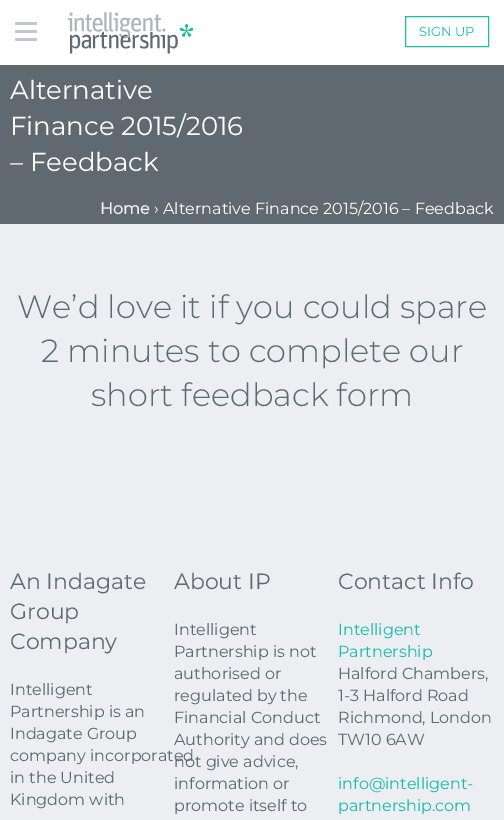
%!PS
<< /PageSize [504 820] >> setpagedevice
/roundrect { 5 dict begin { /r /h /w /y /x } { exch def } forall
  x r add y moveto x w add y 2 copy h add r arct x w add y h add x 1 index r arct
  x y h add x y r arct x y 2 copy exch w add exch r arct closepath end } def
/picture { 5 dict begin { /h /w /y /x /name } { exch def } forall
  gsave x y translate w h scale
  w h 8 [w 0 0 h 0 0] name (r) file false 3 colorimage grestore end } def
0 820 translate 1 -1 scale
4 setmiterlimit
0.925 0.933 0.945 setrgbcolor
0 0 504 820 rectfill
1 setgray
0 0 504 65 rectfill
0.753 0.78 0.82 setrgbcolor
15 30 22 3 1.5 roundrect fill
15 22 22 3 1.5 roundrect fill
15 38 22 3 1.5 roundrect fill
(img1.rgb) 68 12 126 42 picture
0.102 0.737 0.678 setrgbcolor
405.5 16.5 83 30 rectstroke
/Montserrat-Regular [13 0 0 -13 0 0] selectfont
419 36 moveto (SIGN UP) show
0.376 0.408 0.439 setrgbcolor
0 65 504 159 rectfill
/Montserrat-Regular [26 0 0 -26 0 0] selectfont
1 setgray
10 99 moveto (Alternative) show
10 135 moveto (Finance 2015/2016) show
10 171 moveto (– Feedback) show
/Montserrat-Bold [16 0 0 -16 0 0] selectfont
0.925 0.933 0.945 setrgbcolor
100 214 moveto (Home) show
/Montserrat-Regular [16 0 0 -16 0 0] selectfont
1 setgray
154 214 moveto (› Alternative Finance 2015/2016 – Feedback) show
/Montserrat-Light [32 0 0 -32 0 0] selectfont
0.376 0.408 0.439 setrgbcolor
17 318 moveto (We’d love it if you could spare) show
41 362 moveto (2 minutes to complete our) show
91 406 moveto (short feedback form) show
/Montserrat-Regular [22 0 0 -22 0 0] selectfont
10 589 moveto (An Indagate) show
10 619 moveto (Group) show
10 649 moveto (Company) show
/Montserrat-Regular [16 0 0 -16 0 0] selectfont
10 695 moveto (Intelligent) show
10 717 moveto (Partnership is an) show
10 739 moveto (Indagate Group) show
10 761 moveto (company incorporated) show
10 783 moveto (in the United) show
10 805 moveto (Kingdom with) show
/Montserrat-Regular [22 0 0 -22 0 0] selectfont
174 589 moveto (About IP) show
/Montserrat-Regular [16 0 0 -16 0 0] selectfont
174 635 moveto (Intelligent) show
174 657 moveto (Partnership is not) show
174 679 moveto (authorised or) show
174 701 moveto (regulated by the) show
174 723 moveto (Financial Conduct) show
174 745 moveto (Authority and does) show
174 767 moveto (not give advice,) show
174 789 moveto (information or) show
174 811 moveto (promote itself to) show
/Montserrat-Regular [22 0 0 -22 0 0] selectfont
338 589 moveto (Contact Info) show
/Montserrat-Regular [16 0 0 -16 0 0] selectfont
0.102 0.737 0.678 setrgbcolor
338 635 moveto (Intelligent) show
338 657 moveto (Partnership) show
0.376 0.408 0.439 setrgbcolor
338 679 moveto (Halford Chambers,) show
338 701 moveto (1-3 Halford Road) show
338 723 moveto (Richmond, London) show
338 745 moveto (TW10 6AW) show
0.102 0.737 0.678 setrgbcolor
338 789 moveto (info@intelligent-) show
338 811 moveto (partnership.com) show
showpage
